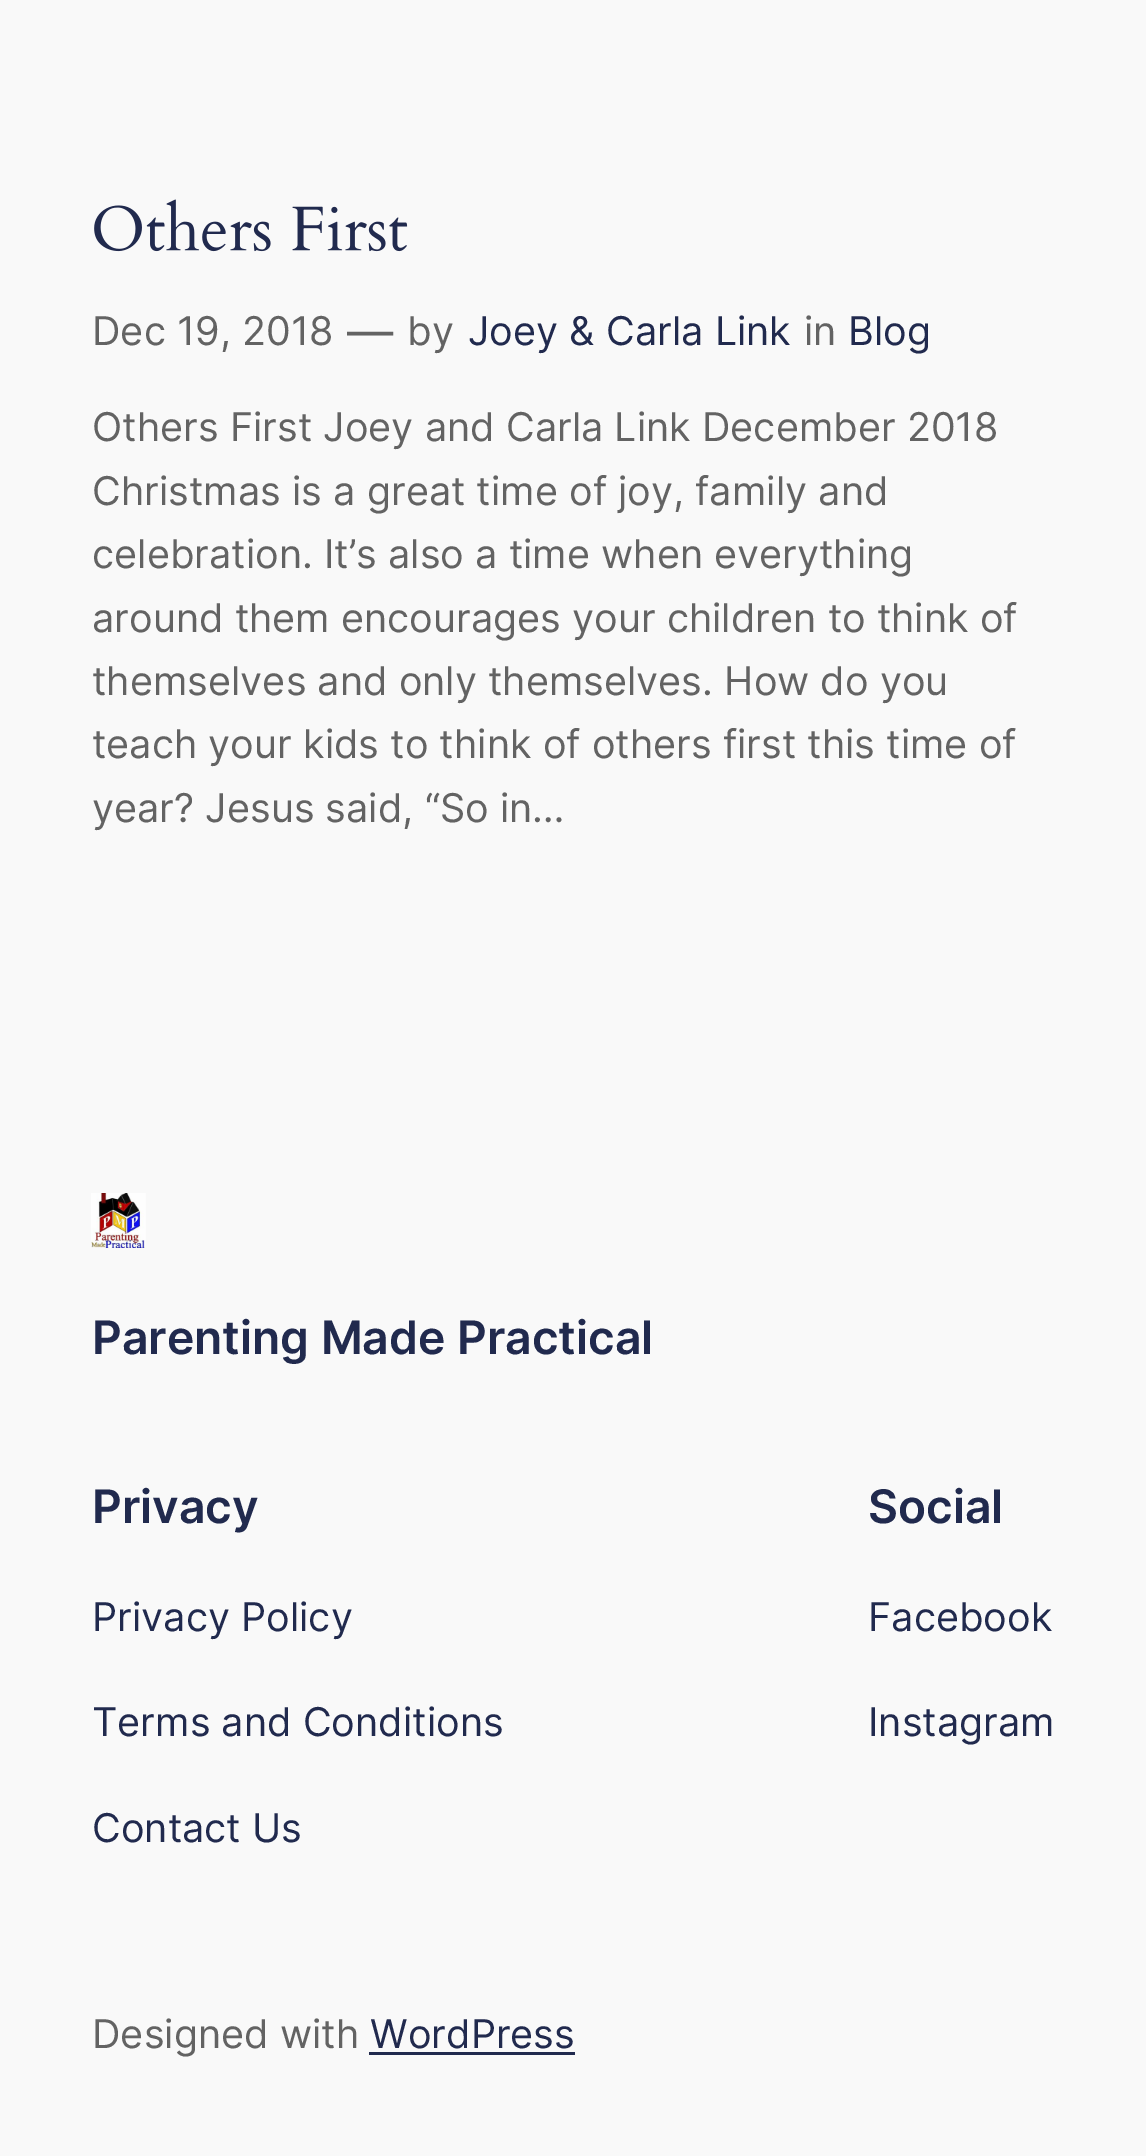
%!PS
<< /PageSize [1146 2156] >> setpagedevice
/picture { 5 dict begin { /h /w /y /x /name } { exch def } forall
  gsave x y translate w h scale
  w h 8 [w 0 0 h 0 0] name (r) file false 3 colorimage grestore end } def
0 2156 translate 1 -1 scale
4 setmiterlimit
0.976 setgray
0 0 1146 2156 rectfill
(img1.rgb) 94 199 314 53 picture
/Inter-Regular [39.6 0 0 -39.6 0 0] selectfont
0.388 setgray
92 345 moveto (Dec 19, 2018) show
/Inter-Regular [46.25 0 0 -46.25 0 0] selectfont
347 348 moveto (—) show
/Inter-Regular [39.6 0 0 -39.6 0 0] selectfont
407 345 moveto (by) show
0.129 0.165 0.306 setrgbcolor
468 345 moveto (Joey & Carla Link) show
0.388 setgray
804 345 moveto (in) show
0.129 0.165 0.306 setrgbcolor
848 345 moveto (Blog) show
0.388 setgray
92 441 moveto (Others First Joey and Carla Link December 2018) show
92 505 moveto (Christmas is a great time of joy, family and) show
92 568 moveto (celebration. It’s also a time when everything) show
92 632 moveto (around them encourages your children to think of) show
92 695 moveto (themselves and only themselves. How do you) show
92 758 moveto (teach your kids to think of others first this time of) show
92 822 moveto (year? Jesus said, “So in…) show
(img2.rgb) 91 1193 55 55 picture
/Inter-SemiBold [46.25 0 0 -46.25 0 0] selectfont
0.129 0.165 0.306 setrgbcolor
92 1354 moveto (Parenting Made Practical) show
92 1523 moveto (Privacy) show
/Inter-Regular [39.6 0 0 -39.6 0 0] selectfont
92 1631 moveto (Privacy Policy) show
92 1736 moveto (Terms and Conditions) show
92 1842 moveto (Contact Us) show
/Inter-SemiBold [46.25 0 0 -46.25 0 0] selectfont
868 1523 moveto (Social) show
/Inter-Regular [39.6 0 0 -39.6 0 0] selectfont
868 1631 moveto (Facebook) show
868 1736 moveto (Instagram) show
0.388 setgray
92 2048 moveto (Designed with) show
0.129 0.165 0.306 setrgbcolor
370 2048 moveto (WordPress) show
369 2052 206 3 rectfill
showpage
